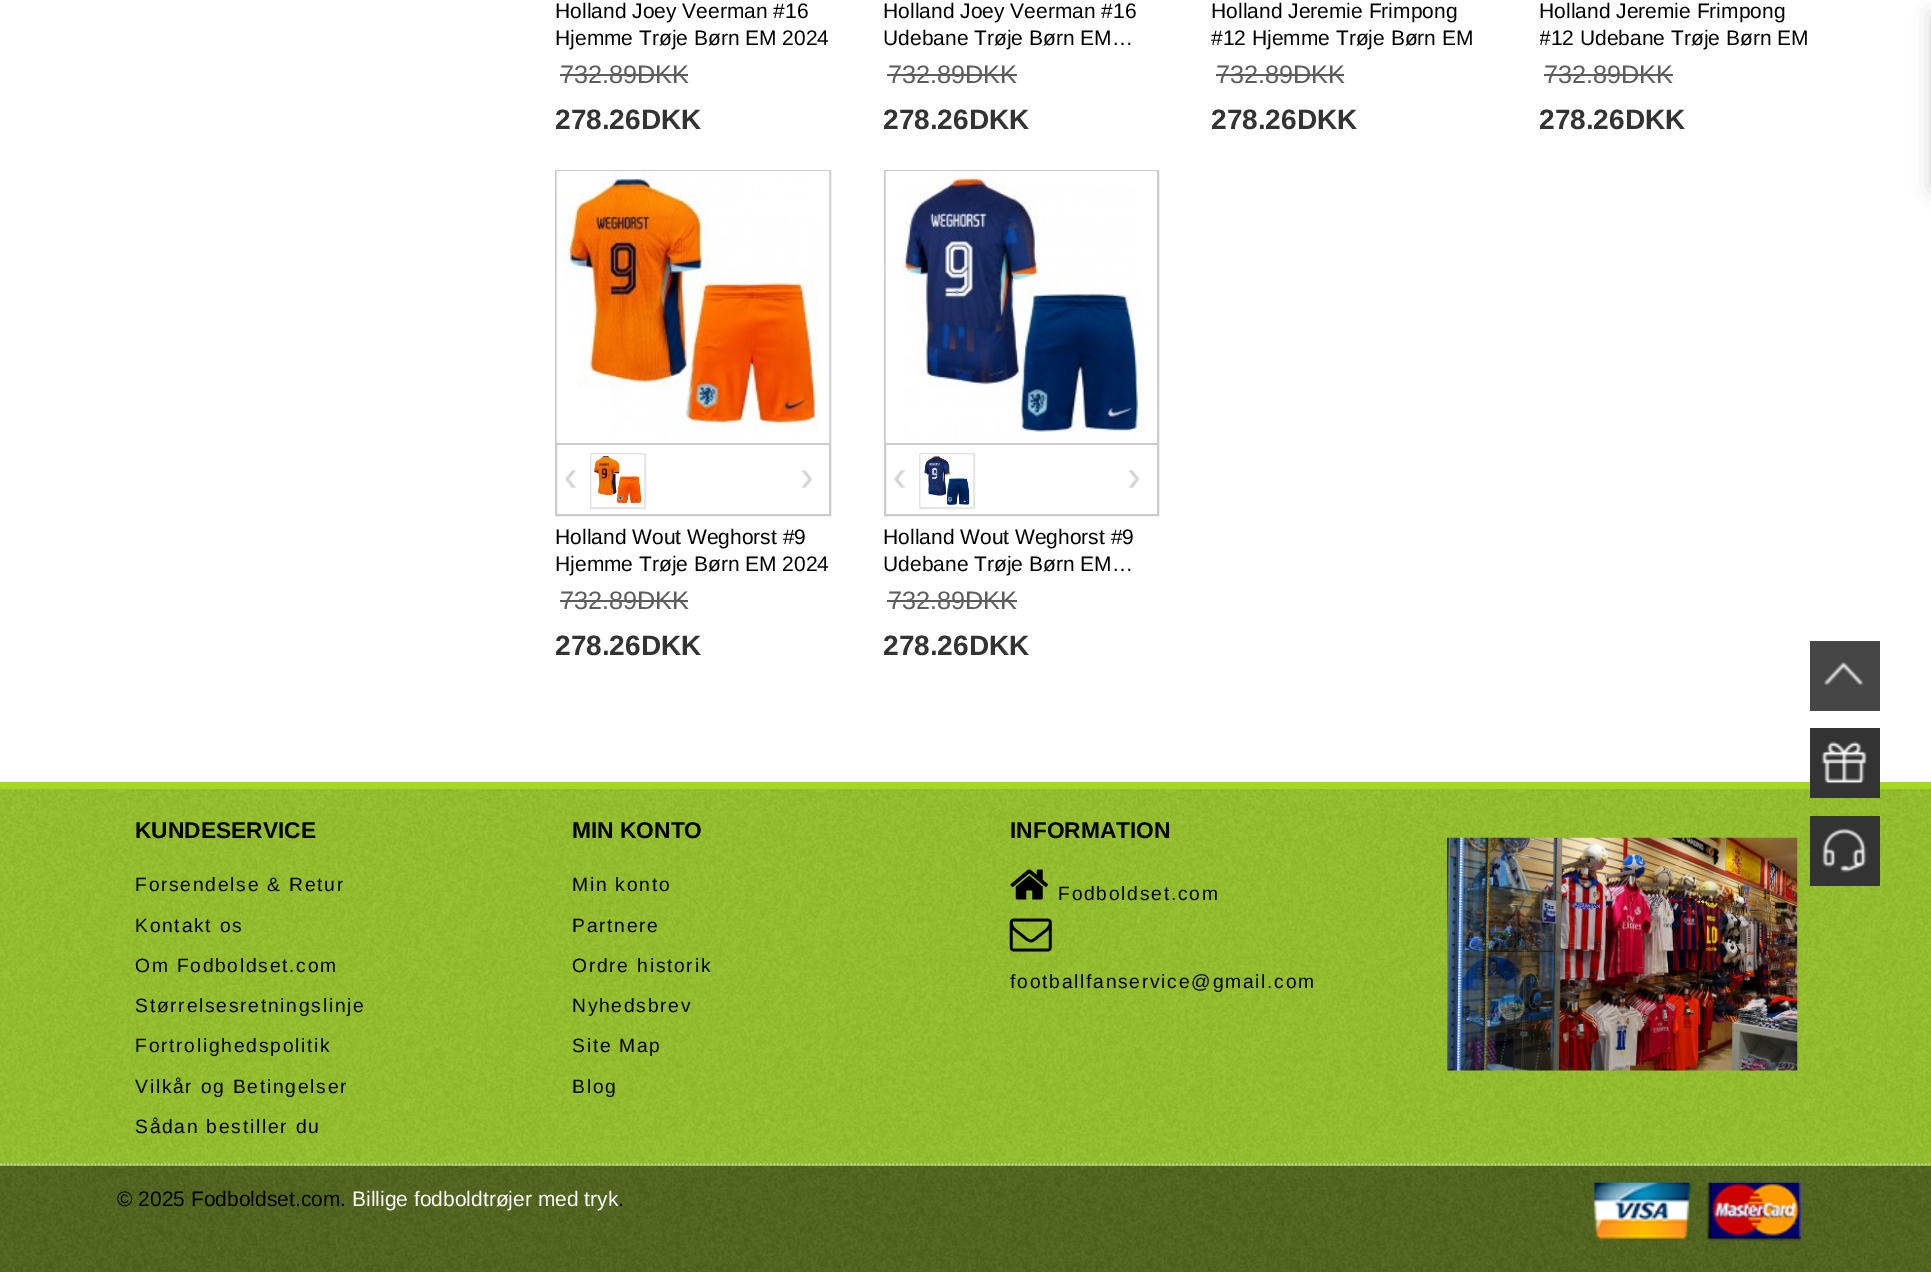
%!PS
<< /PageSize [1931 1272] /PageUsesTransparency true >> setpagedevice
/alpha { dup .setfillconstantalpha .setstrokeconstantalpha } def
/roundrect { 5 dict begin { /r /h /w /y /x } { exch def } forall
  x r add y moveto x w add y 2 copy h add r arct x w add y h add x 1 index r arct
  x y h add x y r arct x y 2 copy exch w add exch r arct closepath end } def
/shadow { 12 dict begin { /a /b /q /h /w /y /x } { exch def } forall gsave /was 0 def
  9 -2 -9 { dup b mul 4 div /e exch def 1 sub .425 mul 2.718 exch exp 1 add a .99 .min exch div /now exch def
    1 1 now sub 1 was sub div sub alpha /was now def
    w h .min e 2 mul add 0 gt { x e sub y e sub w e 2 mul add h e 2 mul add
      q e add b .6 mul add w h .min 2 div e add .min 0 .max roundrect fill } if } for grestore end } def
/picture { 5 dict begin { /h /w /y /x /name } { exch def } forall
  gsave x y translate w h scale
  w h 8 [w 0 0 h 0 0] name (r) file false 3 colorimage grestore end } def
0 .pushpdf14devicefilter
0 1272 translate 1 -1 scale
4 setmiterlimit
1 setgray
0 0 1931 1272 rectfill
/LiberationSans-Regular [21 0 0 -21 0 0] selectfont
0 setgray
555 18 moveto (Holland Joey Veerman #16) show
555 45 moveto (Hjemme Trøje Børn EM 2024) show
/LiberationSans-Regular [25.25 0 0 -25.25 0 0] selectfont
0.365 setgray
560 83 moveto (732.89DKK) show
560 74 128 2 rectfill
/LiberationSans-Bold [28 0 0 -28 0 0] selectfont
0.2 setgray
555 129 moveto (278.26DKK) show
/LiberationSans-Regular [21 0 0 -21 0 0] selectfont
0 setgray
883 18 moveto (Holland Joey Veerman #16) show
883 45 moveto (Udebane Trøje Børn EM…) show
/LiberationSans-Regular [25.25 0 0 -25.25 0 0] selectfont
0.365 setgray
888 83 moveto (732.89DKK) show
887 74 130 2 rectfill
/LiberationSans-Bold [28 0 0 -28 0 0] selectfont
0.2 setgray
883 129 moveto (278.26DKK) show
/LiberationSans-Regular [21 0 0 -21 0 0] selectfont
0 setgray
1211 18 moveto (Holland Jeremie Frimpong) show
1211 45 moveto (#12 Hjemme Trøje Børn EM) show
/LiberationSans-Regular [25.25 0 0 -25.25 0 0] selectfont
0.365 setgray
1216 83 moveto (732.89DKK) show
1216 74 128 2 rectfill
/LiberationSans-Bold [28 0 0 -28 0 0] selectfont
0.2 setgray
1211 129 moveto (278.26DKK) show
/LiberationSans-Regular [21 0 0 -21 0 0] selectfont
0 setgray
1539 18 moveto (Holland Jeremie Frimpong) show
gsave
1540 0 275 53 rectclip
1539 45 moveto (#12 Udebane Trøje Børn EM) show
grestore
/LiberationSans-Regular [25.25 0 0 -25.25 0 0] selectfont
0.365 setgray
1544 83 moveto (732.89DKK) show
1544 74 129 2 rectfill
/LiberationSans-Bold [28 0 0 -28 0 0] selectfont
0.2 setgray
1539 129 moveto (278.26DKK) show
0.8 setgray
2 setlinewidth
556 171 274 344 rectstroke
557 443 273 2 rectfill
(img1.rgb) 556 171 274 271 picture
(img2.rgb) 565 470 11 18 picture
0.902 setgray
591 454 54 54 rectstroke
(img3.rgb) 591 454 53 53 picture
(img4.rgb) 801 470 12 18 picture
/LiberationSans-Regular [21 0 0 -21 0 0] selectfont
0 setgray
555 544 moveto (Holland Wout Weghorst #9) show
555 571 moveto (Hjemme Trøje Børn EM 2024) show
/LiberationSans-Regular [25.25 0 0 -25.25 0 0] selectfont
0.365 setgray
560 609 moveto (732.89DKK) show
560 600 128 2 rectfill
/LiberationSans-Bold [28 0 0 -28 0 0] selectfont
0.2 setgray
555 655 moveto (278.26DKK) show
0.8 setgray
885 171 273 344 rectstroke
886 443 271 2 rectfill
(img5.rgb) 885 171 272 271 picture
(img2.rgb) 894 470 11 18 picture
0.902 setgray
920 454 54 54 rectstroke
(img6.rgb) 920 454 53 53 picture
(img7.rgb) 1128 470 12 18 picture
/LiberationSans-Regular [21 0 0 -21 0 0] selectfont
0 setgray
883 544 moveto (Holland Wout Weghorst #9) show
883 571 moveto (Udebane Trøje Børn EM…) show
/LiberationSans-Regular [25.25 0 0 -25.25 0 0] selectfont
0.365 setgray
888 609 moveto (732.89DKK) show
887 600 130 2 rectfill
/LiberationSans-Bold [28 0 0 -28 0 0] selectfont
0.2 setgray
883 655 moveto (278.26DKK) show
0 setgray
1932 14 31 175 0 10.5 0.18 shadow
0.588 0.753 0.165 setrgbcolor
0 789 1931 377 rectfill
(img8.rgb) 0 789 1931 376 picture
0.643 0.847 0.129 setrgbcolor
0 782 1931 7 rectfill
0.792 setgray
1.8 setlinewidth
[1.75 1.75] 0 setdash
newpath 0 1164.5 moveto 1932 1164.5 lineto stroke
/LiberationSans-Bold [22.75 0 0 -22.75 0 0] selectfont
0 setgray
135 838 moveto (KUNDESERVICE) show
/LiberationSans-Regular [19.25 0 0 -19.25 0 0] selectfont
135 891 moveto 1.75 0 (Forsendelse & Retur) ashow
135 932 moveto 1.75 0 (Kontakt os) ashow
135 972 moveto 1.75 0 (Om Fodboldset.com) ashow
135 1012 moveto 1.75 0 (Størrelsesretningslinje) ashow
135 1052 moveto 1.75 0 (Fortrolighedspolitik) ashow
135 1093 moveto 1.75 0 (Vilkår og Betingelser) ashow
135 1133 moveto 1.75 0 (Sådan bestiller du) ashow
/LiberationSans-Bold [22.75 0 0 -22.75 0 0] selectfont
572 838 moveto (MIN KONTO) show
/LiberationSans-Regular [19.25 0 0 -19.25 0 0] selectfont
572 891 moveto 1.75 0 (Min konto) ashow
572 932 moveto 1.75 0 (Partnere) ashow
572 972 moveto 1.75 0 (Ordre historik) ashow
572 1012 moveto 1.75 0 (Nyhedsbrev) ashow
572 1052 moveto 1.75 0 (Site Map) ashow
572 1093 moveto 1.75 0 (Blog) ashow
/LiberationSans-Bold [22.75 0 0 -22.75 0 0] selectfont
1010 838 moveto (INFORMATION) show
(img9.rgb) 1010 869 39 31 picture
/LiberationSans-Regular [19.25 0 0 -19.25 0 0] selectfont
1058 900 moveto 1.75 0 (Fodboldset.com) ashow
(img10.rgb) 1009 918 43 34 picture
1010 988 moveto 1.75 0 (footballfanservice@gmail.com) ashow
(img11.rgb) 1447 837 351 234 picture
0.306 0.388 0.102 setrgbcolor
0 1166 1931 106 rectfill
(img12.rgb) 0 1165 1931 107 picture
/LiberationSans-Regular [21 0 0 -21 0 0] selectfont
0 setgray
117 1206 moveto (© 2025 Fodboldset.com.) show
1 setgray
352 1206 moveto (Billige fodboldtrøjer med tryk) show
0 setgray
618 1206 moveto (.) show
(img13.rgb) 1593 1182 209 59 picture
0.275 setgray
1810 641 70 70 rectfill
(img14.rgb) 1824 662 39 23 picture
0.2 setgray
1810 728 70 70 rectfill
(img15.rgb) 1821 741 46 43 picture
1810 816 70 70 rectfill
(img16.rgb) 1822 828 45 45 picture
.poppdf14devicefilter showpage
